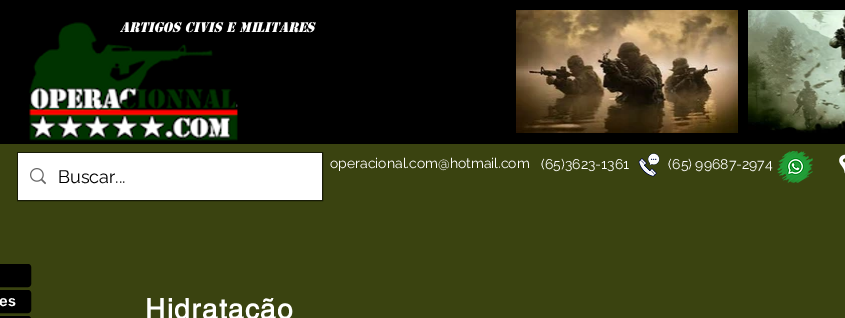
%!PS
<< /PageSize [845 318] >> setpagedevice
/roundrect { 5 dict begin { /r /h /w /y /x } { exch def } forall
  x r add y moveto x w add y 2 copy h add r arct x w add y h add x 1 index r arct
  x y h add x y r arct x y 2 copy exch w add exch r arct closepath end } def
/picture { 5 dict begin { /h /w /y /x /name } { exch def } forall
  gsave x y translate w h scale
  w h 8 [w 0 0 h 0 0] name (r) file false 3 colorimage grestore end } def
0 318 translate 1 -1 scale
4 setmiterlimit
0.227 0.263 0.063 setrgbcolor
0 0 845 318 rectfill
0 setgray
0 0 845 144 rectfill
/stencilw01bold-BoldItalic [13 0 0 -13 0 0] selectfont
1 setgray
120 32 moveto (ARTIGOS civis e MILITARes) show
(img1.rgb) 29 22 209 119 picture
(img2.rgb) 516 10 222 123 picture
(img3.rgb) 748 10 97 123 picture
/Raleway-Regular [14 0 0 -14 0 0] selectfont
541 169 moveto (\(65\)3623-1361           \(65\) 99687-2974) show
(img4.rgb) 638 153 22 24 picture
(img5.rgb) 777 151 36 32 picture
330 168 moveto (operacional.com@hotmail.com) show
(img6.rgb) 839 154 6 20 picture
0.09 0.106 0.024 setrgbcolor
17.5 152.5 305 48 rectstroke
1 setgray
18 153 304 47 rectfill
(img7.rgb) 30 168 16 17 picture
/Raleway-Regular [18 0 0 -18 0 0] selectfont
0 setgray
58 183 moveto (Buscar...) show
-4 265 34 21 2 roundrect gsave fill grestore
2 setlinewidth
stroke
-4 291 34 21 2 roundrect gsave fill grestore
stroke
/Rubik-Medium [15 0 0 -15 0 0] selectfont
1 setgray
-1 306 moveto (es) show
0 setgray
-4 317 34 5 2 roundrect stroke
/helvetica-Bold [28 0 0 -28 0 0] selectfont
1 setgray
145 319 moveto 1.4 0 (Hidratação) ashow
showpage
